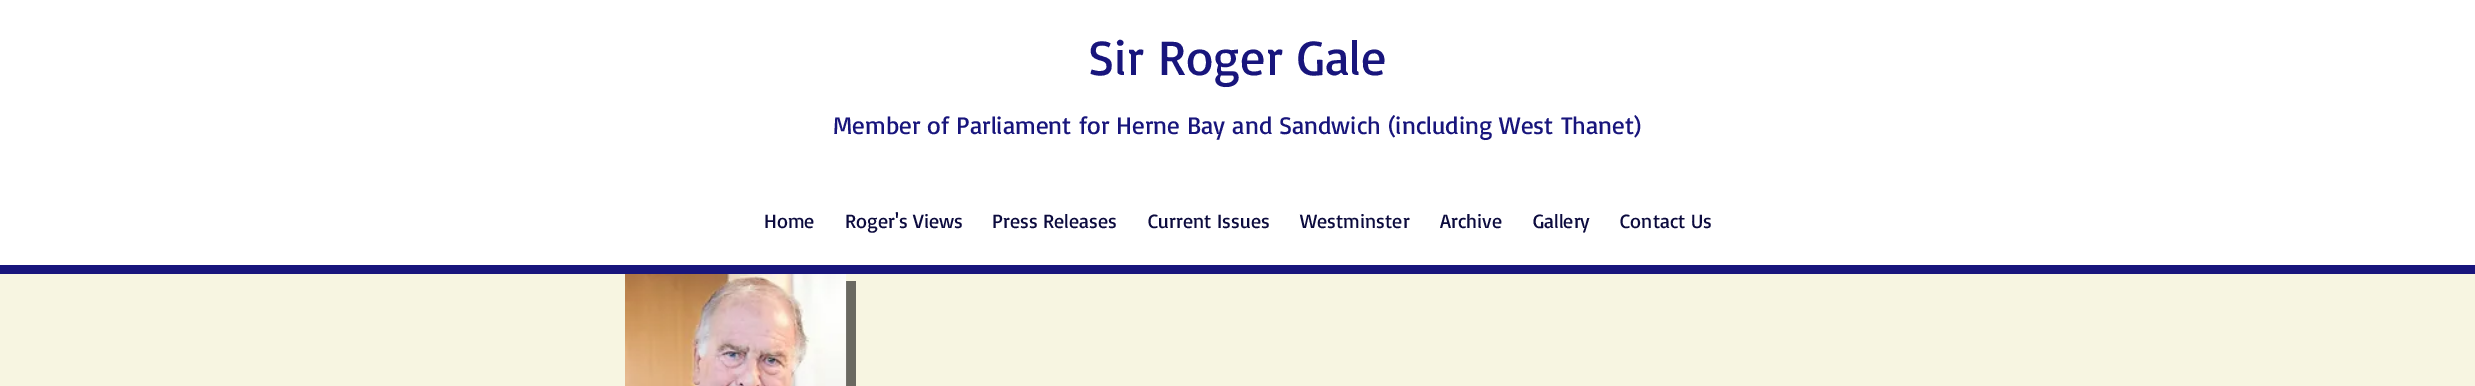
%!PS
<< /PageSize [2475 386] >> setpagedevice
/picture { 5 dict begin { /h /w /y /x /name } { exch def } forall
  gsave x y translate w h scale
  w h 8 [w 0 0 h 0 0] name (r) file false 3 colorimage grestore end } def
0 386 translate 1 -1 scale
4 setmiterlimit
0.969 0.961 0.882 setrgbcolor
0 0 2475 386 rectfill
1 setgray
0 0 2475 265 rectfill
0.094 0.082 0.486 setrgbcolor
0 265 2475 9 rectfill
/Basic-Regular [50 0 0 -50 0 0] selectfont
1088 75 moveto (Sir Roger Gale) show
/Basic-Regular [25 0 0 -25 0 0] selectfont
833 134 moveto (Member of Parliament for Herne Bay and Sandwich \(including West Thanet\)) show
/Basic-Regular [20 0 0 -20 0 0] selectfont
0.047 0.043 0.243 setrgbcolor
764 228 moveto (Home) show
845 228 moveto (Roger's Views) show
992 228 moveto (Press Releases) show
1148 228 moveto (Current Issues) show
1300 228 moveto (Westminster) show
1440 228 moveto (Archive) show
1533 228 moveto (Gallery) show
1620 228 moveto (Contact Us) show
0.416 0.412 0.38 setrgbcolor
newpath 635 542 moveto 635 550 lineto 856 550 lineto 856 281 lineto 846 281 lineto 846 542 lineto closepath fill
(img1.rgb) 625 274 222 112 picture
showpage
